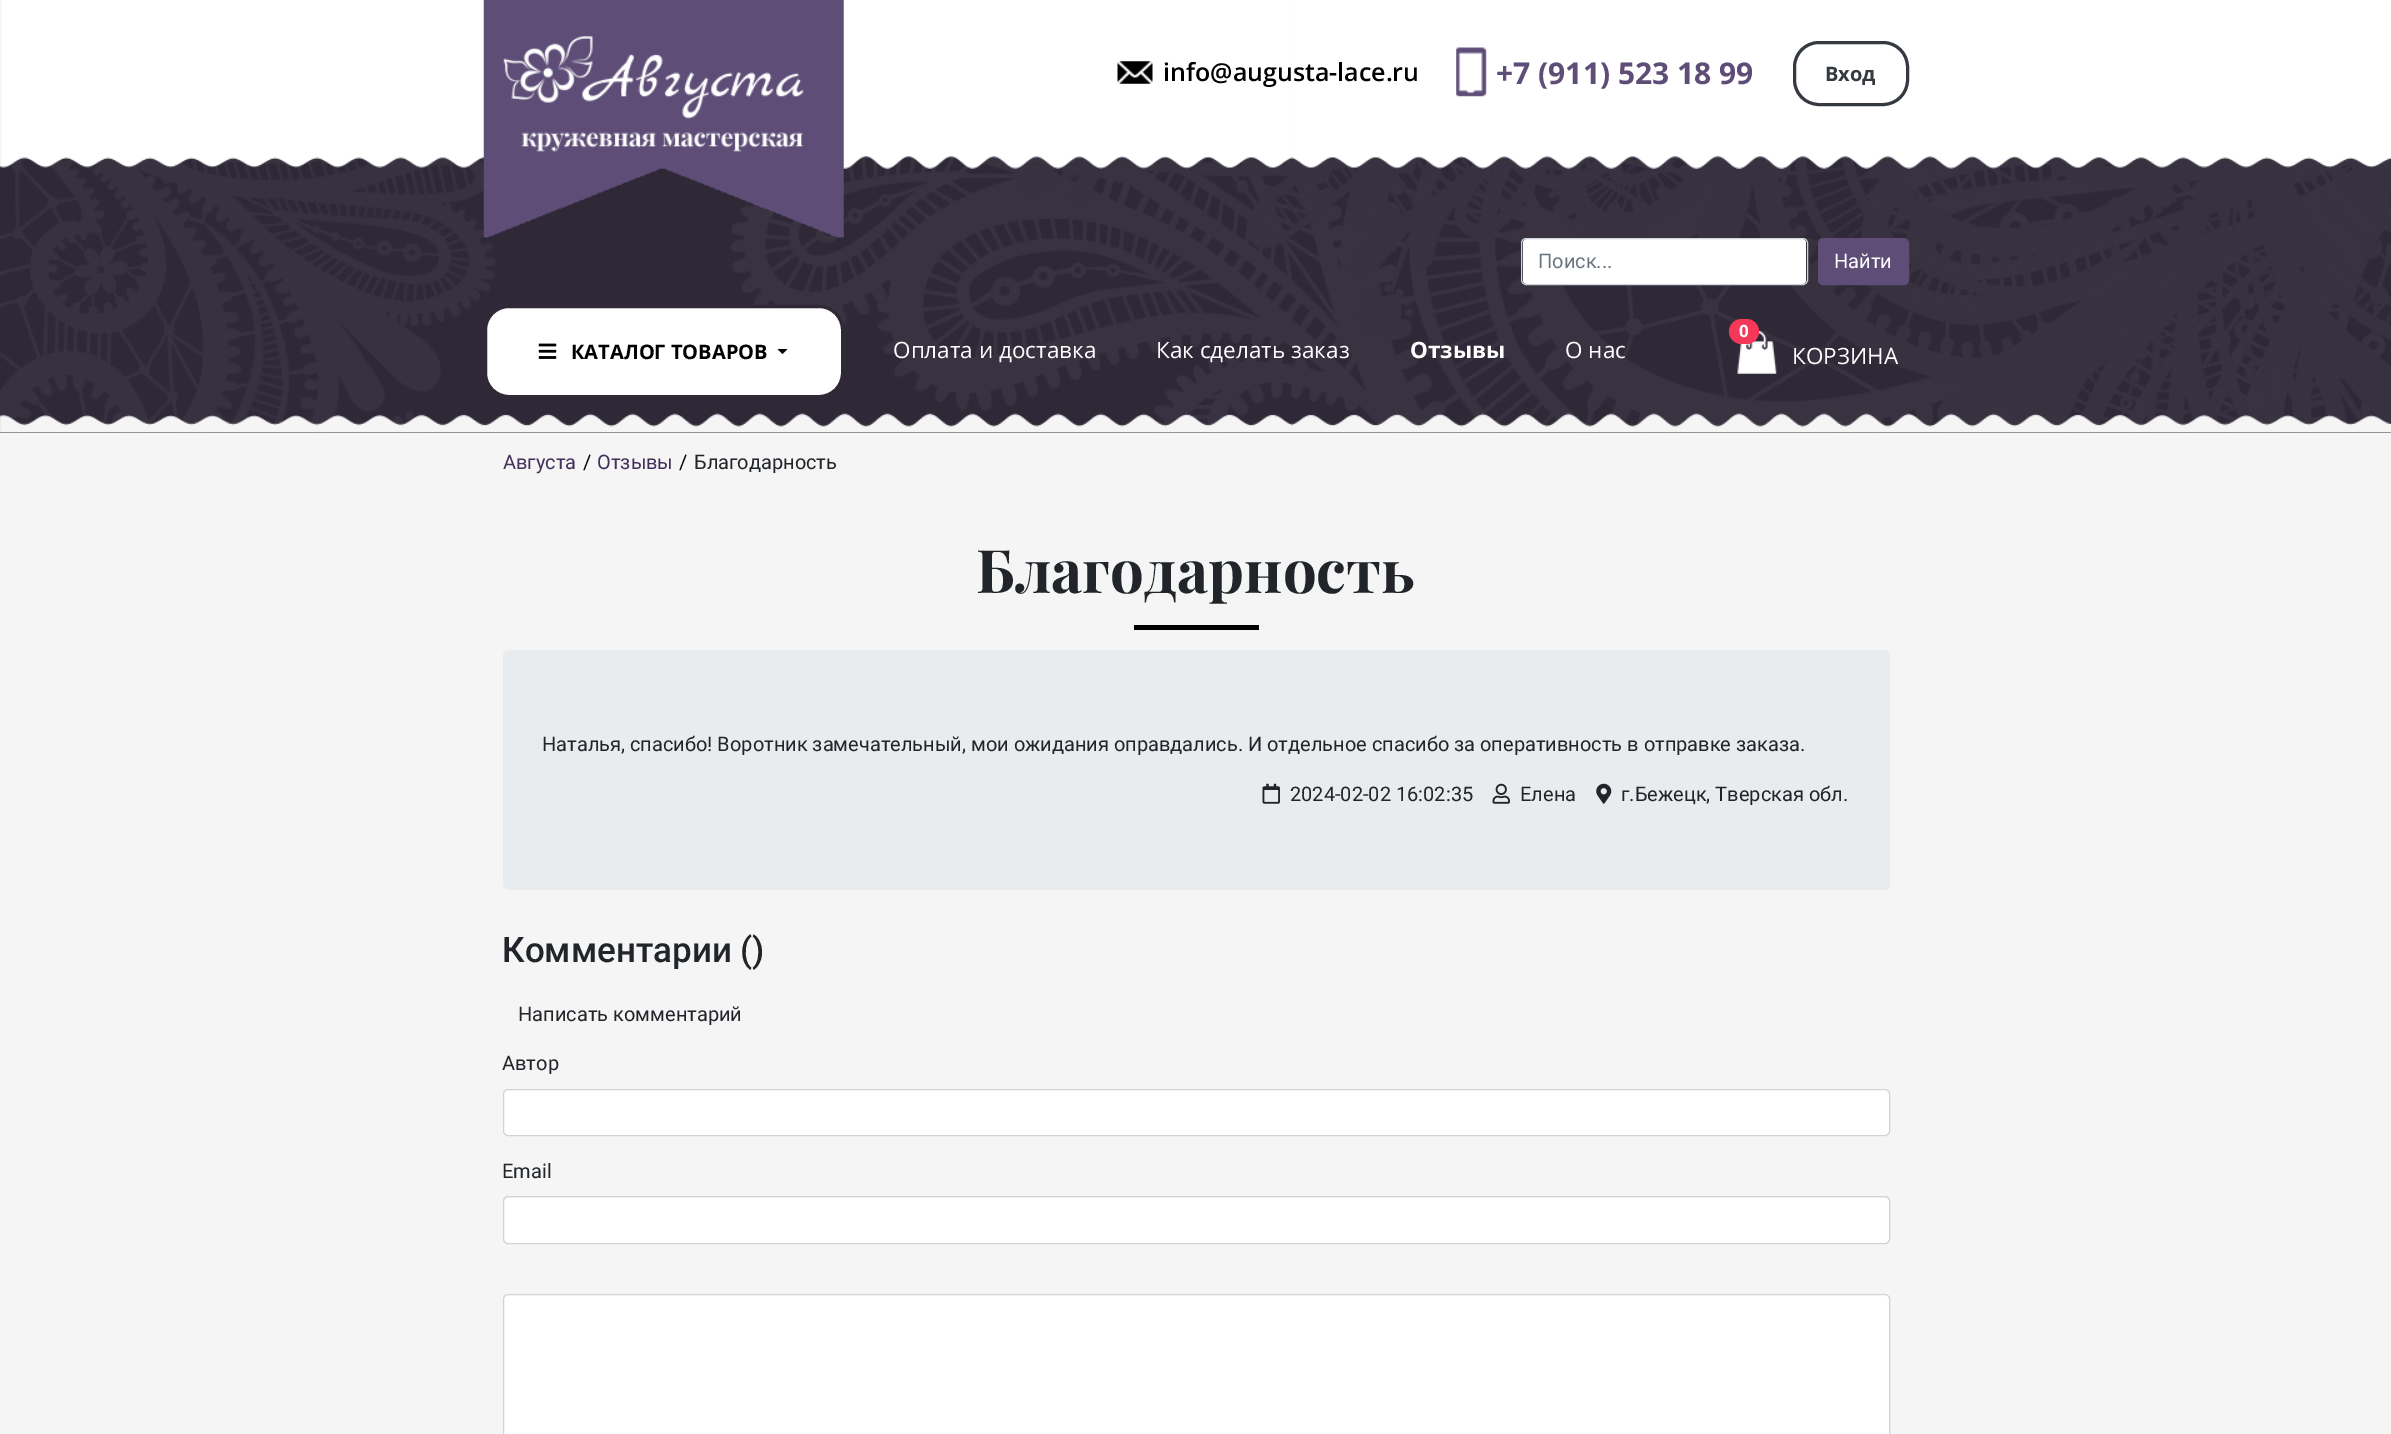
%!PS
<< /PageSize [2391 1434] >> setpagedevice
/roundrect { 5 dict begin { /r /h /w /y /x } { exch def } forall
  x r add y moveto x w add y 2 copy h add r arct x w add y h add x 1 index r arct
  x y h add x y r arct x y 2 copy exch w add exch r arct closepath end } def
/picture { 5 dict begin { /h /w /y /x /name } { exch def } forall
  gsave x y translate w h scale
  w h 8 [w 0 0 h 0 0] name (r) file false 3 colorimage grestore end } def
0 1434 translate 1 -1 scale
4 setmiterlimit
0.961 setgray
0 0 2391 1434 rectfill
0.18 0.157 0.216 setrgbcolor
0 0 2391 433 rectfill
(img7.rgb) 0 90 2391 343 picture
(img1.rgb) 0 0 2391 169 picture
(img2.rgb) 483 0 361 238 picture
(img3.rgb) 1117 61 36 23 picture
/OpenSans-SemiBold [25 0 0 -25 0 0] selectfont
0 setgray
1163 81 moveto (info@augusta-lace.ru) show
(img4.rgb) 1456 47 31 50 picture
/OpenSans-Bold [30 0 0 -30 0 0] selectfont
0.369 0.302 0.467 setrgbcolor
1496 84 moveto (+7 \(911\) 523 18 99) show
0.204 0.227 0.251 setrgbcolor
3 setlinewidth
1794.5 42.5 113 62 24.5 roundrect stroke
/OpenSans-Bold [20 0 0 -20 0 0] selectfont
1825 81 moveto (Вход) show
1 setgray
1523 239 283 45 4 roundrect fill
0.808 0.831 0.855 setrgbcolor
1 setlinewidth
1521.5 238.5 286 46 4.5 roundrect stroke
/Roboto-Regular [20 0 0 -20 0 0] selectfont
0.424 0.459 0.49 setrgbcolor
1538 268 moveto (Поиск...) show
0.369 0.302 0.467 setrgbcolor
1818.5 238.5 90 46 4.5 roundrect gsave fill grestore
stroke
1 setgray
1834 268 moveto (Найти) show
485.5 306.5 357 90 23.5 roundrect gsave fill grestore
0.18 0.157 0.216 setrgbcolor
3 setlinewidth
stroke
(img5.rgb) 538 343 19 16 picture
/OpenSans-Bold [20 0 0 -20 0 0] selectfont
0 setgray
571 359 moveto (КАТАЛОГ ТОВАРОВ) show
newpath 777.5 349 moveto 787.5 349 lineto 782.5 354 lineto closepath fill
/OpenSans-Regular [22.5 0 0 -22.5 0 0] selectfont
1 setgray
893 358 moveto (Оплата и доставка) show
1156 358 moveto (Как сделать заказ) show
/OpenSans-Bold [22.5 0 0 -22.5 0 0] selectfont
1410 358 moveto (Отзывы) show
/OpenSans-Regular [22.5 0 0 -22.5 0 0] selectfont
1565 358 moveto (О нас) show
(img6.rgb) 1737 331 40 43 picture
0.961 0.22 0.345 setrgbcolor
1729 319 30 25 12.5 roundrect fill
/OpenSans-Bold [17 0 0 -17 0 0] selectfont
1 setgray
1739 337 moveto (0) show
/OpenSans-Regular [22.5 0 0 -22.5 0 0] selectfont
1792 364 moveto (КОРЗИНА) show
(img8.rgb) 0 413 2391 20 picture
/Roboto-Regular [20 0 0 -20 0 0] selectfont
0.259 0.192 0.357 setrgbcolor
503 469 moveto (Августа) show
0 setgray
583 469 moveto (/) show
0.259 0.192 0.357 setrgbcolor
597 469 moveto (Отзывы) show
0 setgray
679 469 moveto (/) show
0.129 0.145 0.161 setrgbcolor
694 469 moveto (Благодарность) show
/PlayfairDisplay-Bold [60 0 0 -60 0 0] selectfont
976 593 moveto (Благодарность) show
0 setgray
1134 625 125 5 rectfill
0.914 0.925 0.937 setrgbcolor
503 650 1387 240 6 roundrect fill
/Roboto-Regular [20 0 0 -20 0 0] selectfont
0.129 0.145 0.161 setrgbcolor
542 751 moveto (Наталья, спасибо! Воротник замечательный, мои ожидания оправдались. И отдельное спасибо за оперативность в отправке заказа.) show
(img9.rgb) 1262 783 18 21 picture
1290 801 moveto (2024-02-02 16:02:35) show
(img10.rgb) 1492 783 18 21 picture
1520 801 moveto (Елена) show
(img11.rgb) 1596 783 16 21 picture
1621 801 moveto (г.Бежецк, Тверская обл.) show
/Roboto-Medium [35 0 0 -35 0 0] selectfont
502 962 moveto (Комментарии \(\)) show
/Roboto-Regular [20 0 0 -20 0 0] selectfont
518 1021 moveto (Написать комментарий) show
502 1070 moveto (Автор) show
1 setgray
503.5 1089.5 1386 46 4.5 roundrect gsave fill grestore
0.808 0.831 0.855 setrgbcolor
1 setlinewidth
stroke
0.129 0.145 0.161 setrgbcolor
502 1178 moveto (Email) show
1 setgray
504 1198 1385 45 4 roundrect fill
0.808 0.831 0.855 setrgbcolor
503.5 1196.5 1386 47 4.5 roundrect stroke
1 setgray
504 1295 1385 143 4 roundrect fill
0.808 0.831 0.855 setrgbcolor
503.5 1294.5 1386 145 4.5 roundrect stroke
showpage
